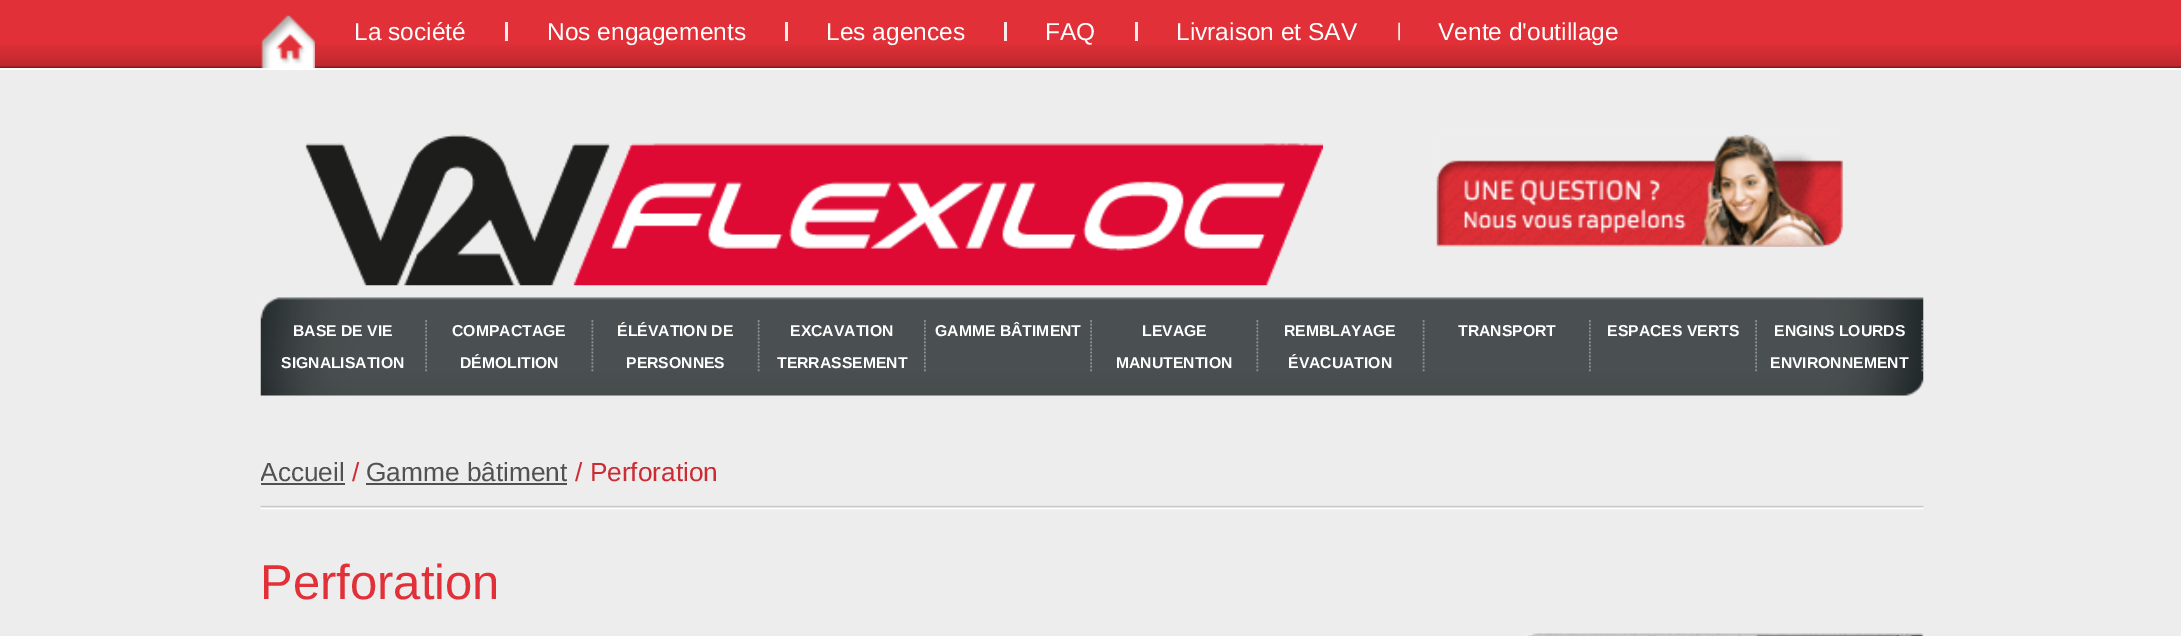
%!PS
<< /PageSize [2181 636] >> setpagedevice
/picture { 5 dict begin { /h /w /y /x /name } { exch def } forall
  gsave x y translate w h scale
  w h 8 [w 0 0 h 0 0] name (r) file false 3 colorimage grestore end } def
0 636 translate 1 -1 scale
4 setmiterlimit
0.929 0.929 0.933 setrgbcolor
0 0 2181 636 rectfill
0.882 0.188 0.216 setrgbcolor
0 0 2181 44 rectfill
(img1.rgb) 0 44 2181 24 picture
1 setgray
0 68 2181 2 rectfill
(img2.rgb) 261 15 54 54 picture
/LiberationSans-Regular [24.5 0 0 -24.5 0 0] selectfont
354 40 moveto (La société) show
0.988 0.918 0.922 setrgbcolor
505 22 3 19 rectfill
1 setgray
547 40 moveto (Nos engagements) show
0.988 0.918 0.922 setrgbcolor
785 22 3 19 rectfill
1 setgray
826 40 moveto (Les agences) show
0.988 0.918 0.922 setrgbcolor
1004 22 3 19 rectfill
1 setgray
1045 40 moveto (FAQ) show
0.988 0.918 0.922 setrgbcolor
1135 22 3 19 rectfill
1 setgray
1176 40 moveto (Livraison et SAV) show
(img3.rgb) 1398 22 2 19 picture
1438 40 moveto (Vente d'outillage) show
(img4.rgb) 304 134 1019 152 picture
(img5.rgb) 1436 134 407 113 picture
(img6.rgb) 260 297 1664 99 picture
(img7.rgb) 425 320 2 52 picture
/LiberationSans-Bold [15.75 0 0 -15.75 0 0] selectfont
293 336 moveto (BASE DE VIE) show
281 368 moveto (SIGNALISATION) show
(img8.rgb) 591 320 3 52 picture
452 336 moveto (COMPACTAGE) show
460 368 moveto (DÉMOLITION) show
(img9.rgb) 757 320 3 52 picture
617 336 moveto (ÉLÉVATION DE) show
626 368 moveto (PERSONNES) show
(img10.rgb) 924 320 2 52 picture
790 336 moveto (EXCAVATION) show
777 368 moveto (TERRASSEMENT) show
(img7.rgb) 1090 320 2 52 picture
935 336 moveto (GAMME BÂTIMENT) show
(img8.rgb) 1256 320 3 52 picture
1142 336 moveto (LEVAGE) show
1116 368 moveto (MANUTENTION) show
(img9.rgb) 1422 320 3 52 picture
1284 336 moveto (REMBLAYAGE) show
1288 368 moveto (ÉVACUATION) show
(img10.rgb) 1589 320 2 52 picture
1458 336 moveto (TRANSPORT) show
(img7.rgb) 1755 320 2 52 picture
1607 336 moveto (ESPACES VERTS) show
(img11.rgb) 1921 320 3 52 picture
1774 336 moveto (ENGINS LOURDS) show
1770 368 moveto (ENVIRONNEMENT) show
(img12.rgb) 260 505 1664 5 picture
gsave
261 457 1662 52 rectclip
/LiberationSans-Regular [26.25 0 0 -26.25 0 0] selectfont
0.318 setgray
260 481 moveto (Accueil) show
grestore
0.318 setgray
261 483 84 2 rectfill
/LiberationSans-Regular [26.25 0 0 -26.25 0 0] selectfont
0.796 0.169 0.192 setrgbcolor
352 481 moveto (/) show
0.318 setgray
366 481 moveto (Gamme bâtiment) show
366 483 201 2 rectfill
0.796 0.169 0.192 setrgbcolor
575 481 moveto (/ Perforation) show
/LiberationSans-Regular [49 0 0 -49 0 0] selectfont
0.882 0.188 0.216 setrgbcolor
260 599 moveto (Perforation) show
(img13.rgb) 1526 633 398 3 picture
showpage
